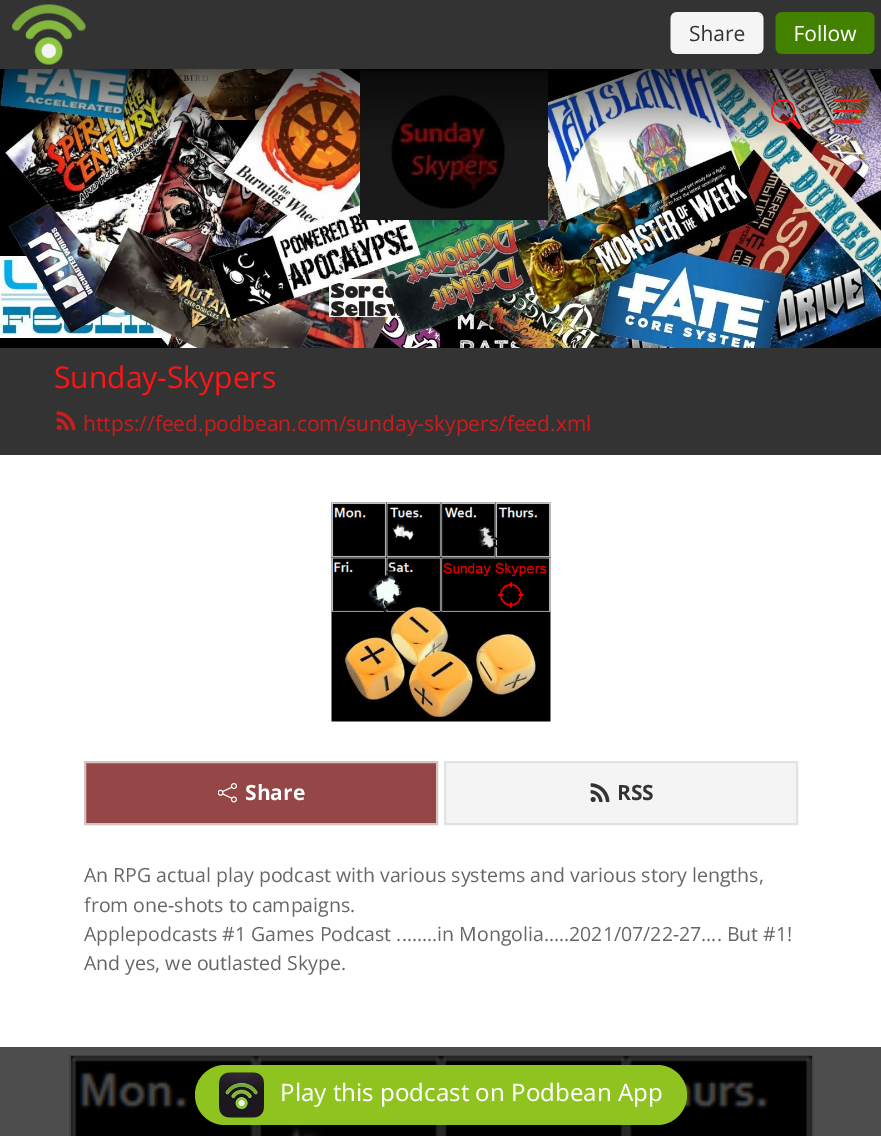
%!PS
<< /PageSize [881 1136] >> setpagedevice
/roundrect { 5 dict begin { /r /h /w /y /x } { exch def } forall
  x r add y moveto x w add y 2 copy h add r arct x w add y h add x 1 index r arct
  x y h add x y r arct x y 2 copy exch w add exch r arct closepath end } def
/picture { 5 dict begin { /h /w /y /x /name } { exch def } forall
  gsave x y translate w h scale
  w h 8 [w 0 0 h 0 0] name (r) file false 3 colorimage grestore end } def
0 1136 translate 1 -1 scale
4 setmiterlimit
1 setgray
0 0 881 1136 rectfill
0.302 setgray
0 1047 881 89 rectfill
0.2 setgray
0 0 881 69 rectfill
(img1.rgb) 12 4 863 61 picture
(img4.rgb) 0 69 881 279 picture
(img2.rgb) 771 99 30 30 picture
(img3.rgb) 833 99 29 24 picture
0 348 881 107 rectfill
/OpenSans-Regular [30 0 0 -30 0 0] selectfont
1 0.082 0.082 setrgbcolor
54 388 moveto (Sunday-Skypers) show
(img5.rgb) 56 411 20 20 picture
/OpenSans-Regular [21 0 0 -21 0 0] selectfont
0.8 0.114 0.114 setrgbcolor
83 431 moveto (https://feed.podbean.com/sunday-skypers/feed.xml) show
(img6.rgb) 331 502 220 220 picture
0.584 0.275 0.275 setrgbcolor
newpath 85 762 moveto 437 762 lineto 437 824 lineto 85 824 lineto closepath gsave fill grestore
0.827 0.765 0.765 setrgbcolor
2 setlinewidth
stroke
(img7.rgb) 218 783 19 20 picture
/OpenSans-Bold [21 0 0 -21 0 0] selectfont
1 setgray
245 800 moveto (Share) show
0.957 setgray
newpath 445 762 moveto 797 762 lineto 797 824 lineto 445 824 lineto closepath gsave fill grestore
0.886 setgray
stroke
(img8.rgb) 590 783 20 20 picture
0.2 setgray
617 800 moveto (RSS) show
/OpenSans-Regular [19.5 0 0 -19.5 0 0] selectfont
0.392 0.4 0.412 setrgbcolor
84 882 moveto (An RPG actual play podcast with various systems and various story lengths,) show
84 912 moveto (from one-shots to campaigns.) show
84 941 moveto (Applepodcasts #1 Games Podcast ........in Mongolia.....2021/07/22-27.... But #1!) show
84 970 moveto (And yes, we outlasted Skype.) show
0.255 setgray
70 1056 742 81 rectstroke
(img9.rgb) 71 1056 741 80 picture
0.561 0.765 0.122 setrgbcolor
195 1065 492 60 30 roundrect fill
(img10.rgb) 219 1072 45 46 picture
/NotoSans-Regular [24 0 0 -24 0 0] selectfont
1 setgray
280 1101 moveto (Play this podcast on Podbean App) show
showpage
